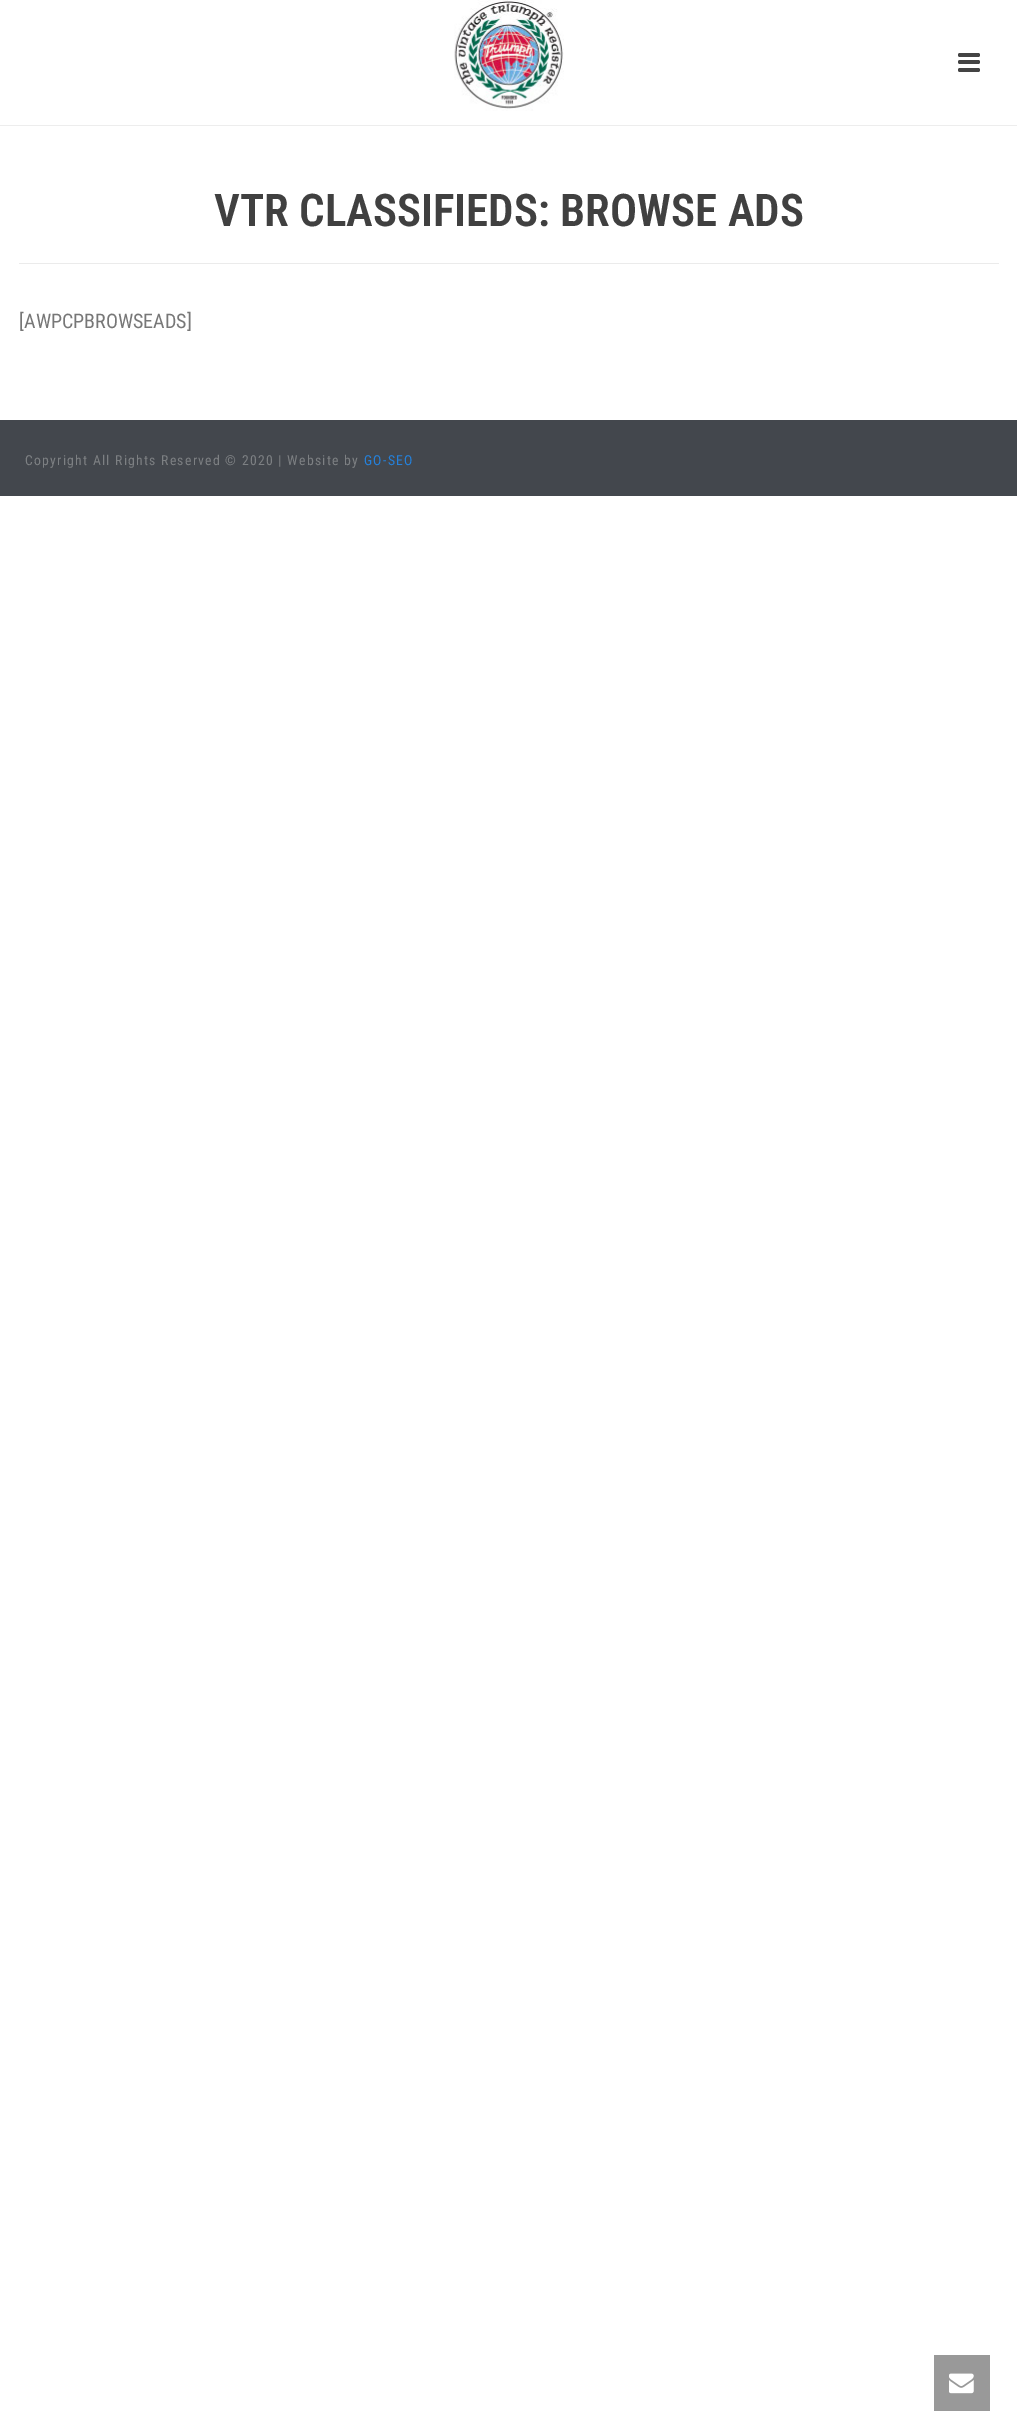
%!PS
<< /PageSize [1017 2429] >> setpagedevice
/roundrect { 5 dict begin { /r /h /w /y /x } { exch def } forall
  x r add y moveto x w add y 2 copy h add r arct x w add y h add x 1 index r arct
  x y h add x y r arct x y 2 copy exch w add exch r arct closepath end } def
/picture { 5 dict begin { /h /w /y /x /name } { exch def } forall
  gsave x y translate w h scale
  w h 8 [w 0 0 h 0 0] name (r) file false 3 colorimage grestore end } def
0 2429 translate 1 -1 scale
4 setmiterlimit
1 setgray
0 0 1017 2429 rectfill
0.929 setgray
0 125 1017 1 rectfill
(img1.rgb) 454 0 110 111 picture
0.267 setgray
958 53 22 4 2 roundrect fill
958 60 22 4 2 roundrect fill
958 68 22 4 2 roundrect fill
/RobotoCondensed-SemiBold [45 0 0 -45 0 0] selectfont
0.251 setgray
214 226 moveto (VTR CLASSIFIEDS: BROWSE ADS) show
0.922 setgray
19 263 980 1 rectfill
/RobotoCondensed-Regular [20 0 0 -20 0 0] selectfont
0.467 setgray
19 328 moveto ([AWPCPBROWSEADS]) show
0.263 0.278 0.302 setrgbcolor
0 420 1017 76 rectfill
/RobotoCondensed-Regular [13.75 0 0 -13.75 0 0] selectfont
0.49 0.502 0.514 setrgbcolor
25 465 moveto 1.25 0 (Copyright All Rights Reserved © 2020 | Website by) ashow
0.145 0.506 0.859 setrgbcolor
364 465 moveto 1.25 0 (GO-SEO) ashow
0.6 setgray
934 2355 56 56 rectfill
(img2.rgb) 949 2373 25 21 picture
showpage
